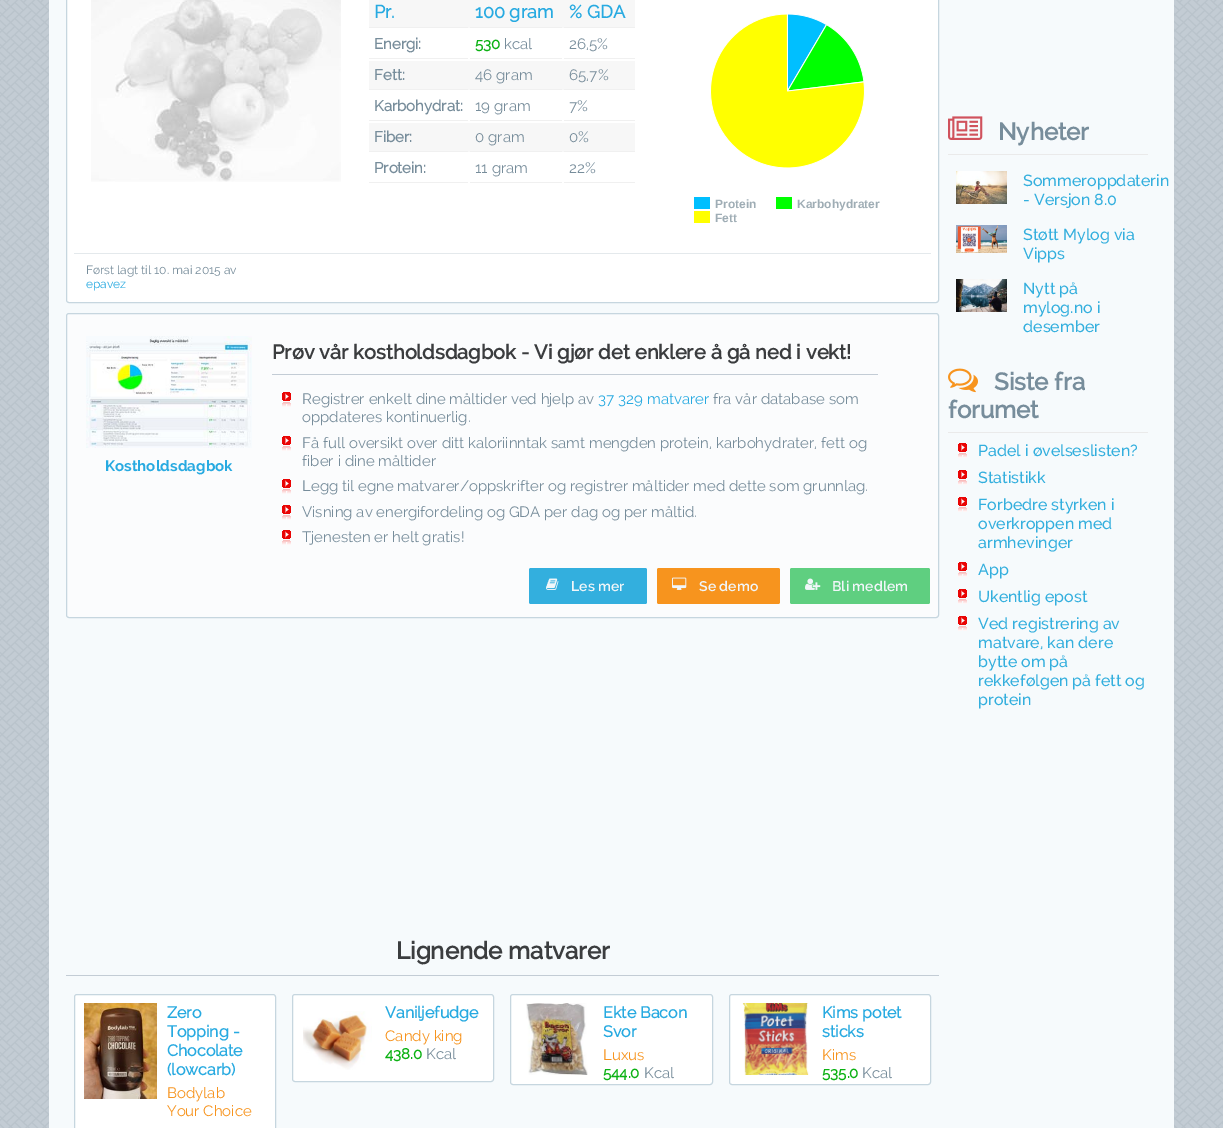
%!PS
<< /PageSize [1223 1128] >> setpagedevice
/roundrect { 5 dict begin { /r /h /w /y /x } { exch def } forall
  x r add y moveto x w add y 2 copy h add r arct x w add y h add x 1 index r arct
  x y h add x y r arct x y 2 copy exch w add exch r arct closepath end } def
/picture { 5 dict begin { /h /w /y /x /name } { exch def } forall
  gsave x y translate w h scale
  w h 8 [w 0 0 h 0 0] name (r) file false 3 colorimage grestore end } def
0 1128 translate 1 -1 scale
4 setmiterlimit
1 setgray
0 0 1223 1128 rectfill
(img1.rgb) 0 0 1223 1128 picture
0.965 0.98 0.988 setrgbcolor
49 0 1125 1128 rectfill
1 setgray
66.5 -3.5 872 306 2.5 roundrect gsave fill grestore
0.776 0.839 0.875 setrgbcolor
stroke
(img2.rgb) 91 0 250 182 picture
0.969 setgray
369 0 266 28 rectfill
0.941 setgray
369 27 99 1 rectfill
/Raleway-Bold [18 0 0 -18 0 0] selectfont
0.153 0.667 0.882 setrgbcolor
374 18 moveto (Pr.) show
0.941 setgray
470 27 92 1 rectfill
0.153 0.667 0.882 setrgbcolor
475 18 moveto (100 gram) show
0.941 setgray
564 27 71 1 rectfill
0.153 0.667 0.882 setrgbcolor
569 18 moveto (% GDA) show
0.941 setgray
369 58 99 1 rectfill
/Raleway-Bold [15 0 0 -15 0 0] selectfont
0.467 0.553 0.608 setrgbcolor
374 49 moveto (Energi:) show
0.941 setgray
470 58 92 1 rectfill
0.043 0.694 0.075 setrgbcolor
475 49 moveto (530) show
/Raleway-Regular [15 0 0 -15 0 0] selectfont
0.467 0.553 0.608 setrgbcolor
504 49 moveto (kcal) show
0.941 setgray
564 58 71 1 rectfill
0.467 0.553 0.608 setrgbcolor
569 49 moveto (26,5%) show
0.969 setgray
369 61 266 29 rectfill
0.941 setgray
369 89 99 1 rectfill
/Raleway-Bold [15 0 0 -15 0 0] selectfont
0.467 0.553 0.608 setrgbcolor
374 80 moveto (Fett:) show
0.941 setgray
470 89 92 1 rectfill
/Raleway-Regular [15 0 0 -15 0 0] selectfont
0.467 0.553 0.608 setrgbcolor
475 80 moveto (46 gram) show
0.941 setgray
564 89 71 1 rectfill
0.467 0.553 0.608 setrgbcolor
569 80 moveto (65,7%) show
0.941 setgray
369 120 99 1 rectfill
/Raleway-Bold [15 0 0 -15 0 0] selectfont
0.467 0.553 0.608 setrgbcolor
374 111 moveto (Karbohydrat:) show
0.941 setgray
470 120 92 1 rectfill
/Raleway-Regular [15 0 0 -15 0 0] selectfont
0.467 0.553 0.608 setrgbcolor
475 111 moveto (19 gram) show
0.941 setgray
564 120 71 1 rectfill
0.467 0.553 0.608 setrgbcolor
569 111 moveto (7%) show
0.969 setgray
369 123 266 29 rectfill
0.941 setgray
369 151 99 1 rectfill
/Raleway-Bold [15 0 0 -15 0 0] selectfont
0.467 0.553 0.608 setrgbcolor
374 142 moveto (Fiber:) show
0.941 setgray
470 151 92 1 rectfill
/Raleway-Regular [15 0 0 -15 0 0] selectfont
0.467 0.553 0.608 setrgbcolor
475 142 moveto (0 gram) show
0.941 setgray
564 151 71 1 rectfill
0.467 0.553 0.608 setrgbcolor
569 142 moveto (0%) show
0.941 setgray
369 182 99 1 rectfill
/Raleway-Bold [15 0 0 -15 0 0] selectfont
0.467 0.553 0.608 setrgbcolor
374 173 moveto (Protein:) show
0.941 setgray
470 182 92 1 rectfill
/Raleway-Regular [15 0 0 -15 0 0] selectfont
0.467 0.553 0.608 setrgbcolor
475 173 moveto (11 gram) show
0.941 setgray
564 182 71 1 rectfill
0.467 0.553 0.608 setrgbcolor
569 173 moveto (22%) show
(img3.rgb) 694 14 171 209 picture
/LiberationSans-Bold [12 0 0 -12 0 0] selectfont
0.624 0.678 0.71 setrgbcolor
715 208 moveto (Protein) show
797 208 moveto (Karbohydrater) show
715 222 moveto (Fett) show
0.894 0.914 0.925 setrgbcolor
74 253 857 1 rectfill
/Raleway-Regular [12 0 0 -12 0 0] selectfont
0.467 0.553 0.608 setrgbcolor
86 274 moveto (Først lagt til 10. mai 2015 av) show
0.153 0.667 0.882 setrgbcolor
86 288 moveto (epavez) show
0.984 0.988 0.992 setrgbcolor
66.5 313.5 872 304 2.5 roundrect gsave fill grestore
0.776 0.839 0.875 setrgbcolor
stroke
(img4.rgb) 86 336 166 112 picture
/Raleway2-Bold [15 0 0 -15 0 0] selectfont
0.153 0.667 0.882 setrgbcolor
105 471 moveto (Kostholdsdagbok) show
0.765 0.8 0.835 setrgbcolor
272 374 606 1 rectfill
/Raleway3-Bold [20 0 0 -20 0 0] selectfont
0.231 0.239 0.247 setrgbcolor
272 359 moveto (Prøv vår kostholdsdagbok - Vi gjør det enklere å gå ned i vekt!) show
(img5.rgb) 282 392 9 15 picture
/Raleway-Regular [15 0 0 -15 0 0] selectfont
0.467 0.553 0.608 setrgbcolor
302 404 moveto (Registrer enkelt dine måltider ved hjelp av) show
0.153 0.667 0.882 setrgbcolor
598 404 moveto (37 329 matvarer) show
0.467 0.553 0.608 setrgbcolor
713 404 moveto (fra vår database som) show
302 422 moveto (oppdateres kontinuerlig.) show
(img5.rgb) 282 436 9 15 picture
302 448 moveto (Få full oversikt over ditt kaloriinntak samt mengden protein, karbohydrater, fett og) show
302 466 moveto (fiber i dine måltider) show
(img5.rgb) 282 479 9 15 picture
302 491 moveto (Legg til egne matvarer/oppskrifter og registrer måltider med dette som grunnlag.) show
(img5.rgb) 282 505 9 15 picture
302 517 moveto (Visning av energifordeling og GDA per dag og per måltid.) show
(img5.rgb) 282 530 9 15 picture
302 542 moveto (Tjenesten er helt gratis!) show
0.2 0.686 0.871 setrgbcolor
529 568 118 36 2 roundrect fill
(img6.rgb) 546 578 13 12 picture
/Raleway-SemiBold [14 0 0 -14 0 0] selectfont
0.945 0.965 0.976 setrgbcolor
571 591 moveto (Les mer) show
0.969 0.58 0.118 setrgbcolor
657 568 123 36 2 roundrect fill
(img7.rgb) 672 577 15 13 picture
0.945 0.965 0.976 setrgbcolor
699 591 moveto (Se demo) show
0.373 0.812 0.502 setrgbcolor
790 568 140 36 2 roundrect fill
(img8.rgb) 805 578 16 12 picture
0.945 0.965 0.976 setrgbcolor
832 591 moveto (Bli medlem) show
0.765 0.8 0.835 setrgbcolor
66 975 873 1 rectfill
/Raleway3-Bold [24 0 0 -24 0 0] selectfont
0.231 0.239 0.247 setrgbcolor
396 959 moveto (Lignende matvarer) show
1 setgray
74.5 994.5 201 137 2.5 roundrect gsave fill grestore
0.776 0.839 0.875 setrgbcolor
stroke
(img9.rgb) 84 1003 73 96 picture
/Raleway-Bold [16 0 0 -16 0 0] selectfont
0.153 0.667 0.882 setrgbcolor
167 1018 moveto (Zero) show
167 1037 moveto (Topping -) show
167 1056 moveto (Chocolate) show
167 1075 moveto (\(lowcarb\)) show
/Raleway-Regular [15 0 0 -15 0 0] selectfont
0.969 0.58 0.118 setrgbcolor
167 1098 moveto (Bodylab) show
167 1116 moveto (Your Choice) show
1 setgray
292.5 994.5 201 87 2.5 roundrect gsave fill grestore
0.776 0.839 0.875 setrgbcolor
stroke
(img10.rgb) 303 1011 69 59 picture
/Raleway-Bold [16 0 0 -16 0 0] selectfont
0.153 0.667 0.882 setrgbcolor
385 1018 moveto (Vaniljefudge) show
/Raleway-Regular [15 0 0 -15 0 0] selectfont
0.969 0.58 0.118 setrgbcolor
385 1041 moveto (Candy king) show
/Raleway-Bold [15 0 0 -15 0 0] selectfont
0.043 0.694 0.075 setrgbcolor
385 1059 moveto (438.0) show
/Raleway-Regular [15 0 0 -15 0 0] selectfont
0.467 0.553 0.608 setrgbcolor
426 1059 moveto (Kcal) show
1 setgray
510.5 994.5 202 90 2.5 roundrect gsave fill grestore
0.776 0.839 0.875 setrgbcolor
stroke
(img11.rgb) 526 1003 62 72 picture
/Raleway-Bold [16 0 0 -16 0 0] selectfont
0.153 0.667 0.882 setrgbcolor
603 1018 moveto (Ekte Bacon) show
603 1037 moveto (Svor) show
/Raleway-Regular [15 0 0 -15 0 0] selectfont
0.969 0.58 0.118 setrgbcolor
603 1060 moveto (Luxus) show
/Raleway-Bold [15 0 0 -15 0 0] selectfont
0.043 0.694 0.075 setrgbcolor
603 1078 moveto (544.0) show
/Raleway-Regular [15 0 0 -15 0 0] selectfont
0.467 0.553 0.608 setrgbcolor
644 1078 moveto (Kcal) show
1 setgray
729.5 994.5 201 90 2.5 roundrect gsave fill grestore
0.776 0.839 0.875 setrgbcolor
stroke
(img12.rgb) 742 1003 67 72 picture
/Raleway-Bold [16 0 0 -16 0 0] selectfont
0.153 0.667 0.882 setrgbcolor
822 1018 moveto (Kims potet) show
822 1037 moveto (sticks) show
/Raleway-Regular [15 0 0 -15 0 0] selectfont
0.969 0.58 0.118 setrgbcolor
822 1060 moveto (Kims) show
/Raleway-Bold [15 0 0 -15 0 0] selectfont
0.043 0.694 0.075 setrgbcolor
822 1078 moveto (535.0) show
/Raleway-Regular [15 0 0 -15 0 0] selectfont
0.467 0.553 0.608 setrgbcolor
862 1078 moveto (Kcal) show
(img13.rgb) 948 116 35 24 picture
/Raleway3-Bold [24 0 0 -24 0 0] selectfont
998 140 moveto (Nyheter) show
0.918 setgray
948 154 200 1 rectfill
(img14.rgb) 956 171 51 33 picture
/Raleway-Medium [16 0 0 -16 0 0] selectfont
0.2 0.686 0.871 setrgbcolor
1023 186 moveto (Sommeroppdaterin) show
1023 205 moveto (- Versjon 8.0) show
(img15.rgb) 956 225 51 28 picture
1023 240 moveto (Støtt Mylog via) show
1023 259 moveto (Vipps) show
(img16.rgb) 956 279 51 33 picture
1023 294 moveto (Nytt på) show
1023 313 moveto (mylog.no i) show
1023 332 moveto (desember) show
(img17.rgb) 948 368 30 25 picture
/Raleway3-Bold [24 0 0 -24 0 0] selectfont
0.467 0.553 0.608 setrgbcolor
994 390 moveto (Siste fra) show
948 418 moveto (forumet) show
0.918 setgray
948 432 200 1 rectfill
(img18.rgb) 958 443 9 15 picture
/Raleway-Medium [16 0 0 -16 0 0] selectfont
0.2 0.686 0.871 setrgbcolor
978 456 moveto (Padel i øvelseslisten?) show
(img18.rgb) 958 470 9 15 picture
978 483 moveto (Statistikk) show
(img18.rgb) 958 497 9 15 picture
978 510 moveto (Forbedre styrken i) show
978 529 moveto (overkroppen med) show
978 548 moveto (armhevinger) show
(img18.rgb) 958 562 9 15 picture
978 575 moveto (App) show
(img18.rgb) 958 589 9 15 picture
978 602 moveto (Ukentlig epost) show
(img18.rgb) 958 616 9 15 picture
978 629 moveto (Ved registrering av) show
978 648 moveto (matvare, kan dere) show
978 667 moveto (bytte om på) show
978 686 moveto (rekkefølgen på fett og) show
978 705 moveto (protein) show
showpage
